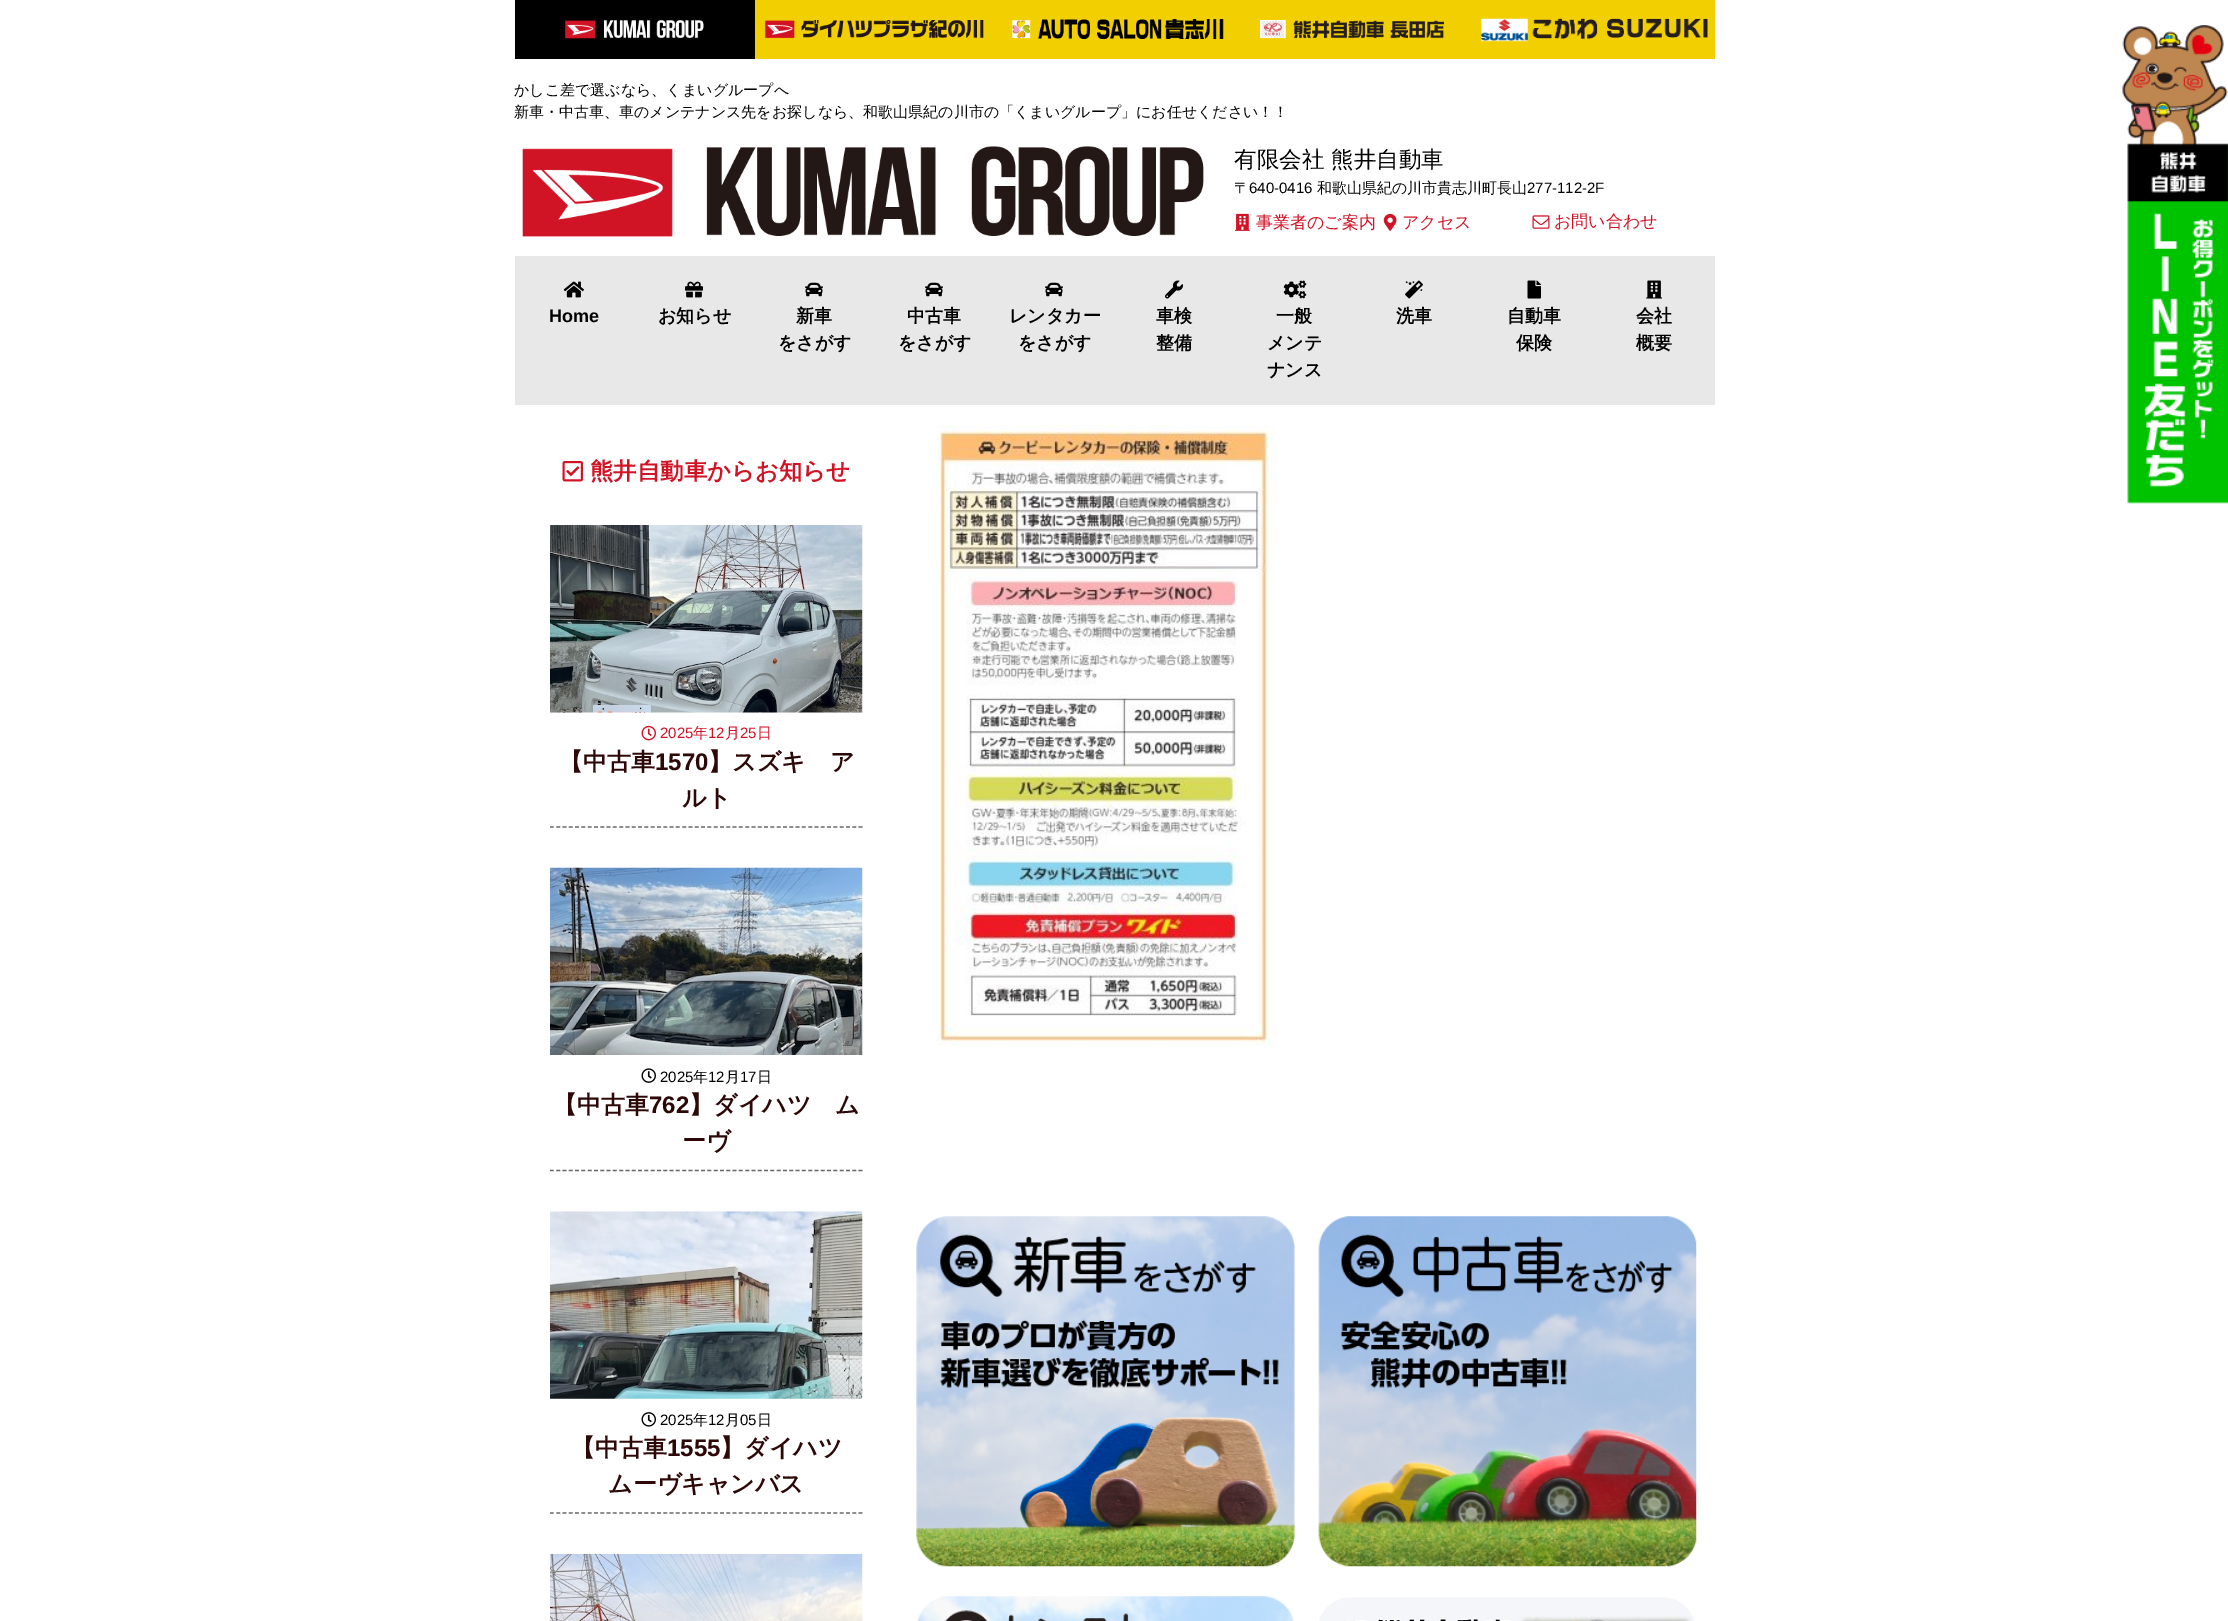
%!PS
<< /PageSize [2228 1621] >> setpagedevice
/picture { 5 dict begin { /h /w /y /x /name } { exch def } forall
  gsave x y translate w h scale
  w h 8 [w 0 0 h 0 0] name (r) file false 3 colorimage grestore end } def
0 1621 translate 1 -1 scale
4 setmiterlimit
1 setgray
0 0 2228 1621 rectfill
0 setgray
515 0 240 59 rectfill
(img1.rgb) 565 20 139 19 picture
0.949 0.812 0.004 setrgbcolor
755 0 960 59 rectfill
(img2.rgb) 764 20 220 19 picture
(img3.rgb) 1012 19 212 20 picture
(img4.rgb) 1260 20 184 19 picture
(img5.rgb) 1481 18 227 24 picture
/WenQuanYiZenHei-Medium [15 0 0 -15 0 0] selectfont
0 setgray
514 95 moveto (かしこ差で選ぶなら、くまいグループへ) show
514 117 moveto (新車・中古車、車のメンテナンス先をお探しなら、和歌山県紀の川市の「くまいグループ」にお任せください！！) show
(img6.rgb) 522 146 682 91 picture
/WenQuanYiZenHei-Medium [22.5 0 0 -22.5 0 0] selectfont
1234 167 moveto (有限会社) show
1331 167 moveto (熊井自動車) show
/WenQuanYiZenHei-Medium [15 0 0 -15 0 0] selectfont
1234 193 moveto (〒) show
/LiberationSans-Regular [15 0 0 -15 0 0] selectfont
1249 193 moveto (640-0416) show
/WenQuanYiZenHei-Medium [15 0 0 -15 0 0] selectfont
1317 193 moveto (和歌山県紀の川市貴志川町長山) show
/LiberationSans-Regular [15 0 0 -15 0 0] selectfont
1527 193 moveto (277-112-2F) show
(img7.rgb) 1235 213 15 18 picture
/WenQuanYiZenHei-Medium [17 0 0 -17 0 0] selectfont
0.82 0.075 0.149 setrgbcolor
1256 228 moveto (事業者のご案内) show
(img8.rgb) 1383 213 14 18 picture
1402 228 moveto (アクセス) show
(img9.rgb) 1532 215 18 14 picture
1554 227 moveto (お問い合わせ) show
0.91 setgray
515 256 1200 149 rectfill
(img10.rgb) 563 281 21 17 picture
/LiberationSans-Bold [18 0 0 -18 0 0] selectfont
0 setgray
549 322 moveto (Home) show
(img11.rgb) 685 281 18 17 picture
/WenQuanYiZenHei-Bold [18 0 0 -18 0 0] selectfont
658 322 moveto (お知らせ) show
(img12.rgb) 805 282 18 15 picture
796 322 moveto (新車) show
778 349 moveto (をさがす) show
(img12.rgb) 925 282 18 15 picture
907 322 moveto (中古車) show
898 349 moveto (をさがす) show
(img12.rgb) 1045 282 18 15 picture
1009 322 moveto (レンタカー) show
1018 349 moveto (をさがす) show
(img13.rgb) 1165 280 18 19 picture
1156 322 moveto (車検) show
1156 349 moveto (整備) show
(img14.rgb) 1283 280 24 19 picture
1276 322 moveto (一般) show
1267 349 moveto (メンテ) show
1267 376 moveto (ナンス) show
(img15.rgb) 1405 280 18 19 picture
1396 322 moveto (洗車) show
(img16.rgb) 1527 280 14 19 picture
1507 322 moveto (自動車) show
1516 349 moveto (保険) show
(img17.rgb) 1646 280 16 19 picture
1636 322 moveto (会社) show
1636 349 moveto (概要) show
(img18.rgb) 562 461 21 21 picture
/WenQuanYiZenHei-Bold [23.4 0 0 -23.4 0 0] selectfont
0.82 0.075 0.149 setrgbcolor
590 479 moveto (熊井自動車からお知らせ) show
(img19.rgb) 550 525 313 188 picture
(img20.rgb) 641 725 15 16 picture
/LiberationSans-Regular [15 0 0 -15 0 0] selectfont
660 738 moveto (2025) show
/WenQuanYiZenHei-Medium [15 0 0 -15 0 0] selectfont
693 738 moveto (年) show
/LiberationSans-Regular [15 0 0 -15 0 0] selectfont
708 738 moveto (12) show
/WenQuanYiZenHei-Medium [15 0 0 -15 0 0] selectfont
725 738 moveto (月) show
/LiberationSans-Regular [15 0 0 -15 0 0] selectfont
740 738 moveto (25) show
/WenQuanYiZenHei-Medium [15 0 0 -15 0 0] selectfont
757 738 moveto (日) show
0.4 setgray
1.2 setlinewidth
[3.75 2.55] 0 setdash
newpath 550 827 moveto 862.5 827 lineto stroke
/WenQuanYiZenHei-Bold [24 0 0 -24 0 0] selectfont
0.18 0.031 0.031 setrgbcolor
559 770 moveto (【中古車) show
/LiberationSans-Bold [24 0 0 -24 0 0] selectfont
655 770 moveto (1570) show
/WenQuanYiZenHei-Bold [24 0 0 -24 0 0] selectfont
708 770 moveto (】スズキ　ア) show
682 806 moveto (ルト) show
(img21.rgb) 550 867 313 188 picture
(img22.rgb) 641 1068 15 15 picture
/LiberationSans-Regular [15 0 0 -15 0 0] selectfont
0 setgray
660 1082 moveto (2025) show
/WenQuanYiZenHei-Medium [15 0 0 -15 0 0] selectfont
693 1082 moveto (年) show
/LiberationSans-Regular [15 0 0 -15 0 0] selectfont
708 1082 moveto (12) show
/WenQuanYiZenHei-Medium [15 0 0 -15 0 0] selectfont
725 1082 moveto (月) show
/LiberationSans-Regular [15 0 0 -15 0 0] selectfont
740 1082 moveto (17) show
/WenQuanYiZenHei-Medium [15 0 0 -15 0 0] selectfont
757 1082 moveto (日) show
0.4 setgray
newpath 550 1170.5 moveto 862.5 1170.5 lineto stroke
/WenQuanYiZenHei-Bold [24 0 0 -24 0 0] selectfont
0.18 0.031 0.031 setrgbcolor
553 1113 moveto (【中古車) show
/LiberationSans-Bold [24 0 0 -24 0 0] selectfont
649 1113 moveto (762) show
/WenQuanYiZenHei-Bold [24 0 0 -24 0 0] selectfont
689 1113 moveto (】ダイハツ　ム) show
682 1149 moveto (ーヴ) show
(img23.rgb) 550 1211 313 188 picture
(img24.rgb) 641 1412 15 15 picture
/LiberationSans-Regular [15 0 0 -15 0 0] selectfont
0 setgray
660 1425 moveto (2025) show
/WenQuanYiZenHei-Medium [15 0 0 -15 0 0] selectfont
693 1425 moveto (年) show
/LiberationSans-Regular [15 0 0 -15 0 0] selectfont
708 1425 moveto (12) show
/WenQuanYiZenHei-Medium [15 0 0 -15 0 0] selectfont
725 1425 moveto (月) show
/LiberationSans-Regular [15 0 0 -15 0 0] selectfont
740 1425 moveto (05) show
/WenQuanYiZenHei-Medium [15 0 0 -15 0 0] selectfont
757 1425 moveto (日) show
0.4 setgray
newpath 550 1513 moveto 862.5 1513 lineto stroke
/WenQuanYiZenHei-Bold [24 0 0 -24 0 0] selectfont
0.18 0.031 0.031 setrgbcolor
571 1456 moveto (【中古車) show
/LiberationSans-Bold [24 0 0 -24 0 0] selectfont
667 1456 moveto (1555) show
/WenQuanYiZenHei-Bold [24 0 0 -24 0 0] selectfont
720 1456 moveto (】ダイハツ) show
608 1492 moveto (ムーヴキャンバス) show
(img25.rgb) 550 1553 313 68 picture
(img26.rgb) 935 425 341 621 picture
(img27.rgb) 916 1216 379 351 picture
(img28.rgb) 1318 1216 379 351 picture
(img29.rgb) 917 1596 377 25 picture
(img30.rgb) 1319 1597 376 24 picture
(img31.rgb) 2122 25 106 479 picture
showpage
